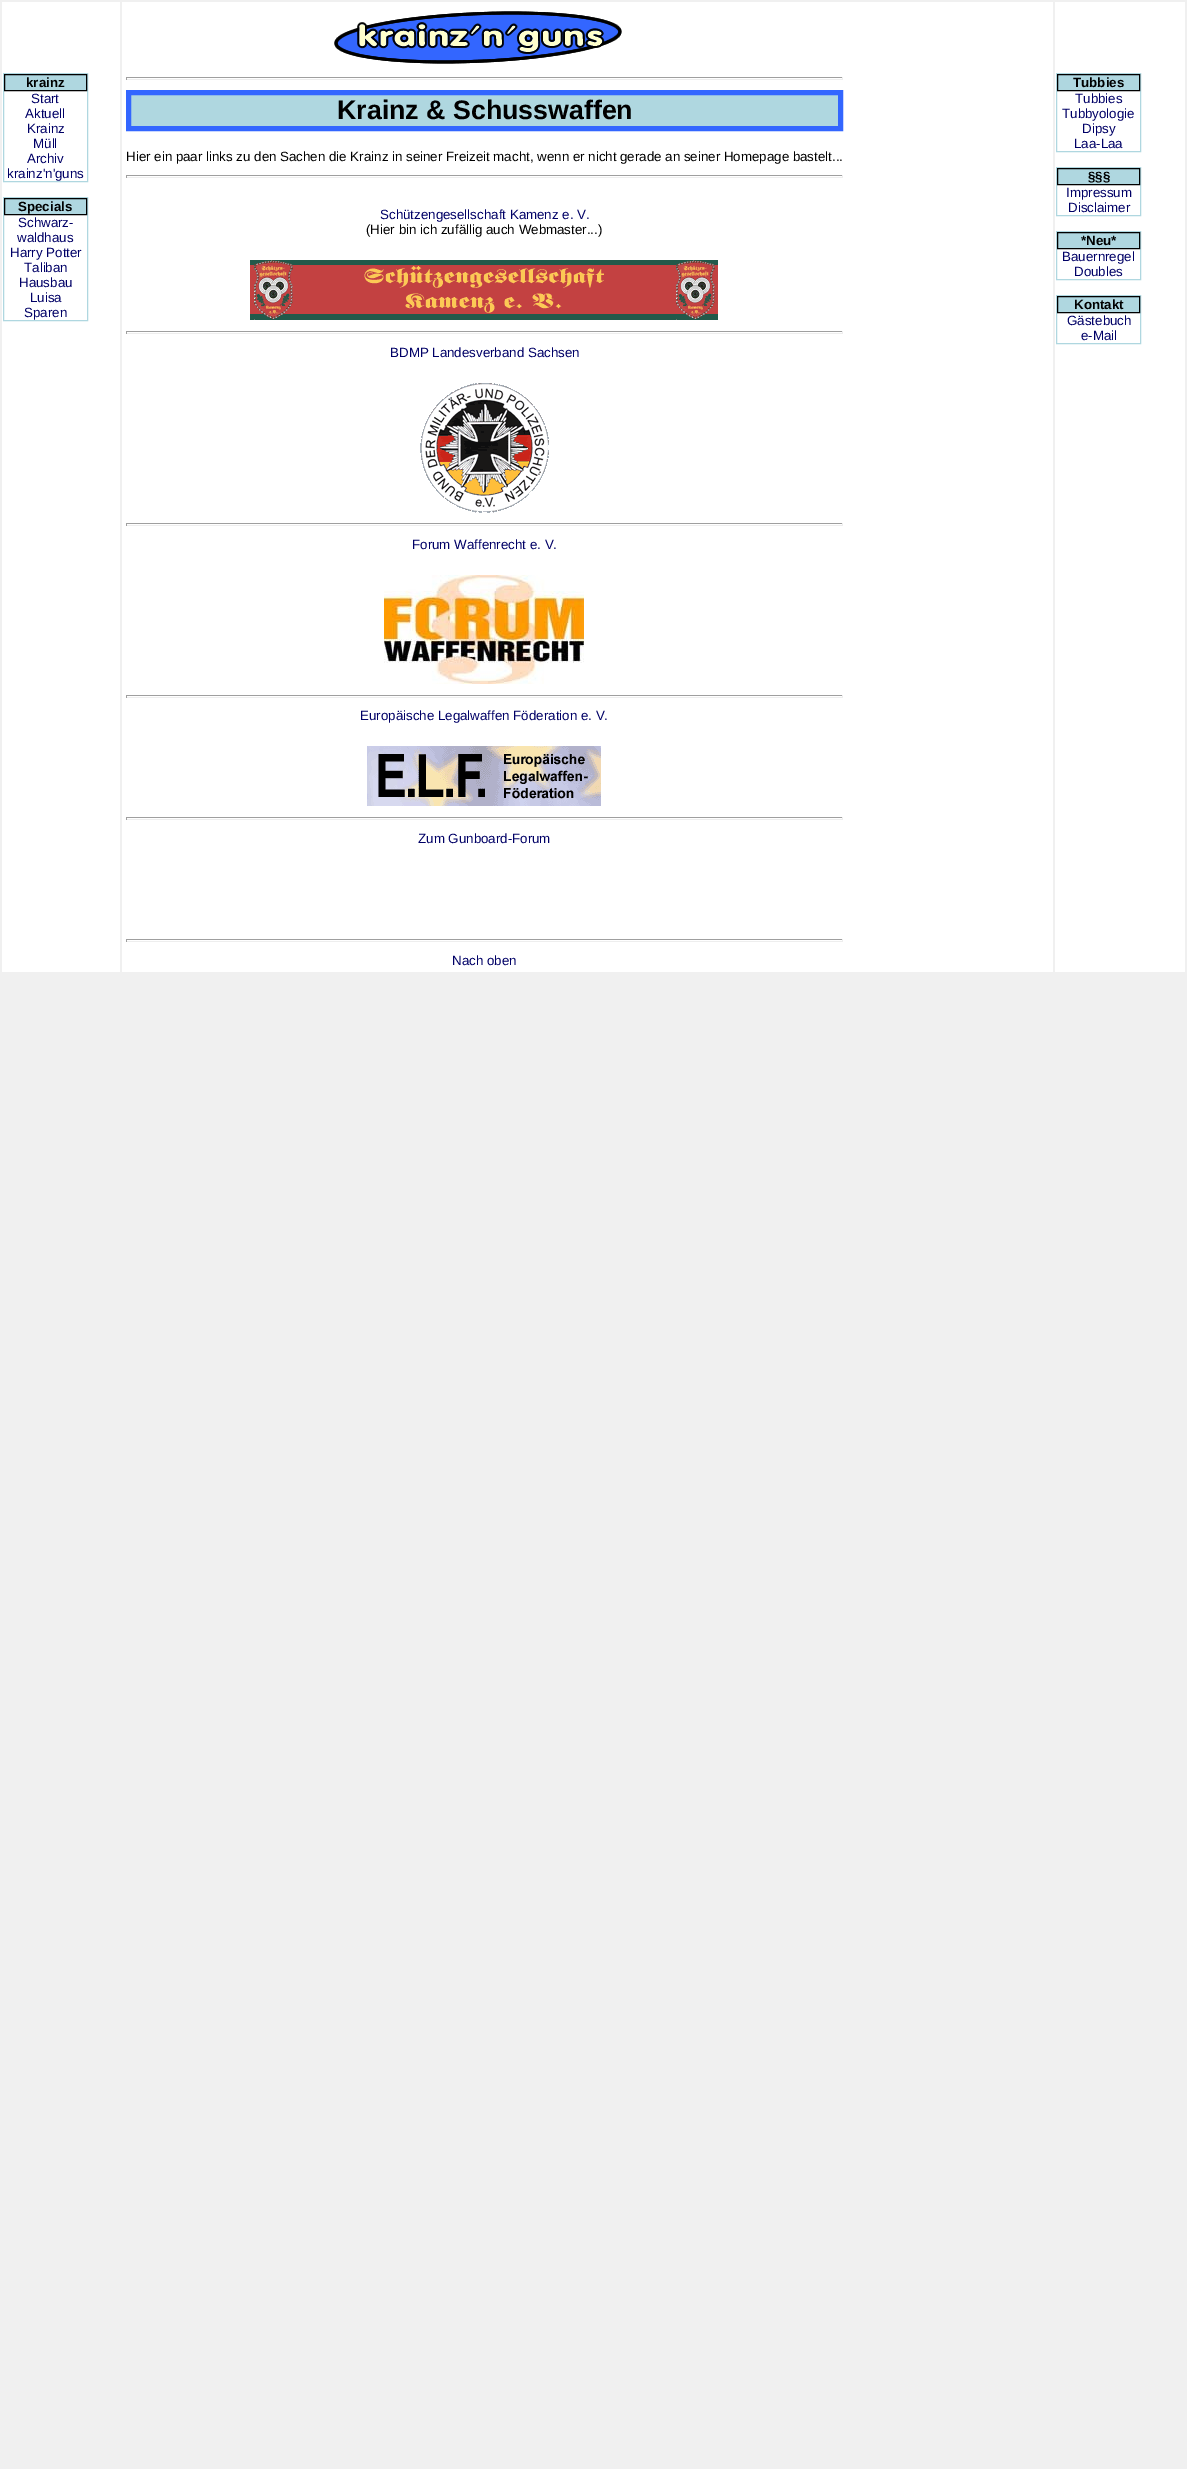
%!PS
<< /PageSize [1187 2469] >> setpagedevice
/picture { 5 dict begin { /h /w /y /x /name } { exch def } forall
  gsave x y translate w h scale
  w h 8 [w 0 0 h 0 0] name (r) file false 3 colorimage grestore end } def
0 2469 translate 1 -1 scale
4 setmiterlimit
0.941 setgray
0 0 1187 2469 rectfill
1 setgray
2 2 118 970 rectfill
0.686 0.843 0.878 setrgbcolor
3.5 73.5 84 108 rectstroke
newpath 4.5 74.5 moveto 86.5 74.5 lineto 86.5 90.5 lineto 4.5 90.5 lineto closepath gsave fill grestore
0 setgray
stroke
/LiberationSans-Bold [13.33 0 0 -13.33 0 0] selectfont
26 87 moveto (krainz) show
/LiberationSans-Regular [13.33 0 0 -13.33 0 0] selectfont
0 0 0.4 setrgbcolor
31 103 moveto (Start) show
25 118 moveto (Aktuell) show
27 133 moveto (Krainz) show
33 148 moveto (Müll) show
27 163 moveto (Archiv) show
7 178 moveto (krainz'n'guns) show
0.686 0.843 0.878 setrgbcolor
3.5 197.5 84 123 rectstroke
newpath 4.5 198.5 moveto 86.5 198.5 lineto 86.5 214.5 lineto 4.5 214.5 lineto closepath gsave fill grestore
0 setgray
stroke
/LiberationSans-Bold [13.33 0 0 -13.33 0 0] selectfont
18 211 moveto (Specials) show
/LiberationSans-Regular [13.33 0 0 -13.33 0 0] selectfont
0 0 0.4 setrgbcolor
18 227 moveto (Schwarz-) show
17 242 moveto (waldhaus) show
10 257 moveto (Harry Potter) show
24 272 moveto (Taliban) show
19 287 moveto (Hausbau) show
30 302 moveto (Luisa) show
24 317 moveto (Sparen) show
1 setgray
122 2 931 970 rectfill
(img1.rgb) 334 11 288 53 picture
0.624 setgray
126 77 717 1 rectfill
0.933 setgray
842 77 1 3 rectfill
126 79 717 1 rectfill
0.624 setgray
126 77 1 3 rectfill
0.686 0.843 0.878 setrgbcolor
newpath 128.5 92.5 moveto 840.5 92.5 lineto 840.5 128.5 lineto 128.5 128.5 lineto closepath gsave fill grestore
0.2 0.4 1 setrgbcolor
5 setlinewidth
stroke
/LiberationSans-Bold [26.75 0 0 -26.75 0 0] selectfont
0 setgray
337 119 moveto (Krainz & Schusswaffen) show
/LiberationSans-Regular [13.33 0 0 -13.33 0 0] selectfont
126 161 moveto (Hier ein paar links zu den Sachen die Krainz in seiner Freizeit macht, wenn er nicht gerade an seiner Homepage bastelt...) show
0.624 setgray
126 175 717 1 rectfill
0.933 setgray
842 175 1 3 rectfill
126 177 717 1 rectfill
0.624 setgray
126 175 1 3 rectfill
0 0 0.4 setrgbcolor
380 219 moveto (Schützengesellschaft Kamenz e. V.) show
0 setgray
366 234 moveto (\(Hier bin ich zufällig auch Webmaster...\)) show
(img2.rgb) 250 260 468 60 picture
0.624 setgray
126 331 717 1 rectfill
0.933 setgray
842 331 1 3 rectfill
126 333 717 1 rectfill
0.624 setgray
126 331 1 3 rectfill
0 0 0.4 setrgbcolor
390 357 moveto (BDMP Landesverband Sachsen) show
(img3.rgb) 420 383 129 130 picture
0.624 setgray
126 523 717 1 rectfill
0.933 setgray
842 523 1 3 rectfill
126 525 717 1 rectfill
0.624 setgray
126 523 1 3 rectfill
0 0 0.4 setrgbcolor
412 549 moveto (Forum Waffenrecht e. V.) show
(img4.rgb) 384 575 200 109 picture
0.624 setgray
126 695 717 1 rectfill
0.933 setgray
842 695 1 3 rectfill
126 697 717 1 rectfill
0.624 setgray
126 695 1 3 rectfill
0 0 0.4 setrgbcolor
360 720 moveto (Europäische Legalwaffen Föderation e. V.) show
(img5.rgb) 367 746 234 60 picture
0.624 setgray
126 817 717 1 rectfill
0.933 setgray
842 817 1 3 rectfill
126 819 717 1 rectfill
0.624 setgray
126 817 1 3 rectfill
0 0 0.4 setrgbcolor
418 843 moveto (Zum Gunboard-Forum) show
0.624 setgray
126 939 717 1 rectfill
0.933 setgray
842 939 1 3 rectfill
126 941 717 1 rectfill
0.624 setgray
126 939 1 3 rectfill
0 0 0.4 setrgbcolor
452 965 moveto (Nach oben) show
1 setgray
1055 2 130 970 rectfill
0.686 0.843 0.878 setrgbcolor
1 setlinewidth
1056.5 73.5 84 78 rectstroke
newpath 1057.5 74.5 moveto 1139.5 74.5 lineto 1139.5 90.5 lineto 1057.5 90.5 lineto closepath gsave fill grestore
0 setgray
stroke
/LiberationSans-Bold [13.33 0 0 -13.33 0 0] selectfont
1073 87 moveto (Tubbies) show
/LiberationSans-Regular [13.33 0 0 -13.33 0 0] selectfont
0 0 0.4 setrgbcolor
1075 103 moveto (Tubbies) show
1062 118 moveto (Tubbyologie) show
1082 133 moveto (Dipsy) show
1074 148 moveto (Laa-Laa) show
0.686 0.843 0.878 setrgbcolor
1056.5 167.5 84 48 rectstroke
newpath 1057.5 168.5 moveto 1139.5 168.5 lineto 1139.5 184.5 lineto 1057.5 184.5 lineto closepath gsave fill grestore
0 setgray
stroke
/LiberationSans-Bold [13.33 0 0 -13.33 0 0] selectfont
1088 181 moveto (§§§) show
/LiberationSans-Regular [13.33 0 0 -13.33 0 0] selectfont
0 0 0.4 setrgbcolor
1066 197 moveto (Impressum) show
1068 212 moveto (Disclaimer) show
0.686 0.843 0.878 setrgbcolor
1056.5 231.5 84 48 rectstroke
newpath 1057.5 232.5 moveto 1139.5 232.5 lineto 1139.5 248.5 lineto 1057.5 248.5 lineto closepath gsave fill grestore
0 setgray
stroke
/LiberationSans-Bold [13.33 0 0 -13.33 0 0] selectfont
1081 245 moveto (*Neu*) show
/LiberationSans-Regular [13.33 0 0 -13.33 0 0] selectfont
0 0 0.4 setrgbcolor
1062 261 moveto (Bauernregel) show
1074 276 moveto (Doubles) show
0.686 0.843 0.878 setrgbcolor
1056.5 295.5 84 48 rectstroke
newpath 1057.5 296.5 moveto 1139.5 296.5 lineto 1139.5 312.5 lineto 1057.5 312.5 lineto closepath gsave fill grestore
0 setgray
stroke
/LiberationSans-Bold [13.33 0 0 -13.33 0 0] selectfont
1074 309 moveto (Kontakt) show
/LiberationSans-Regular [13.33 0 0 -13.33 0 0] selectfont
0 0 0.4 setrgbcolor
1067 325 moveto (Gästebuch) show
1081 340 moveto (e-Mail) show
showpage
